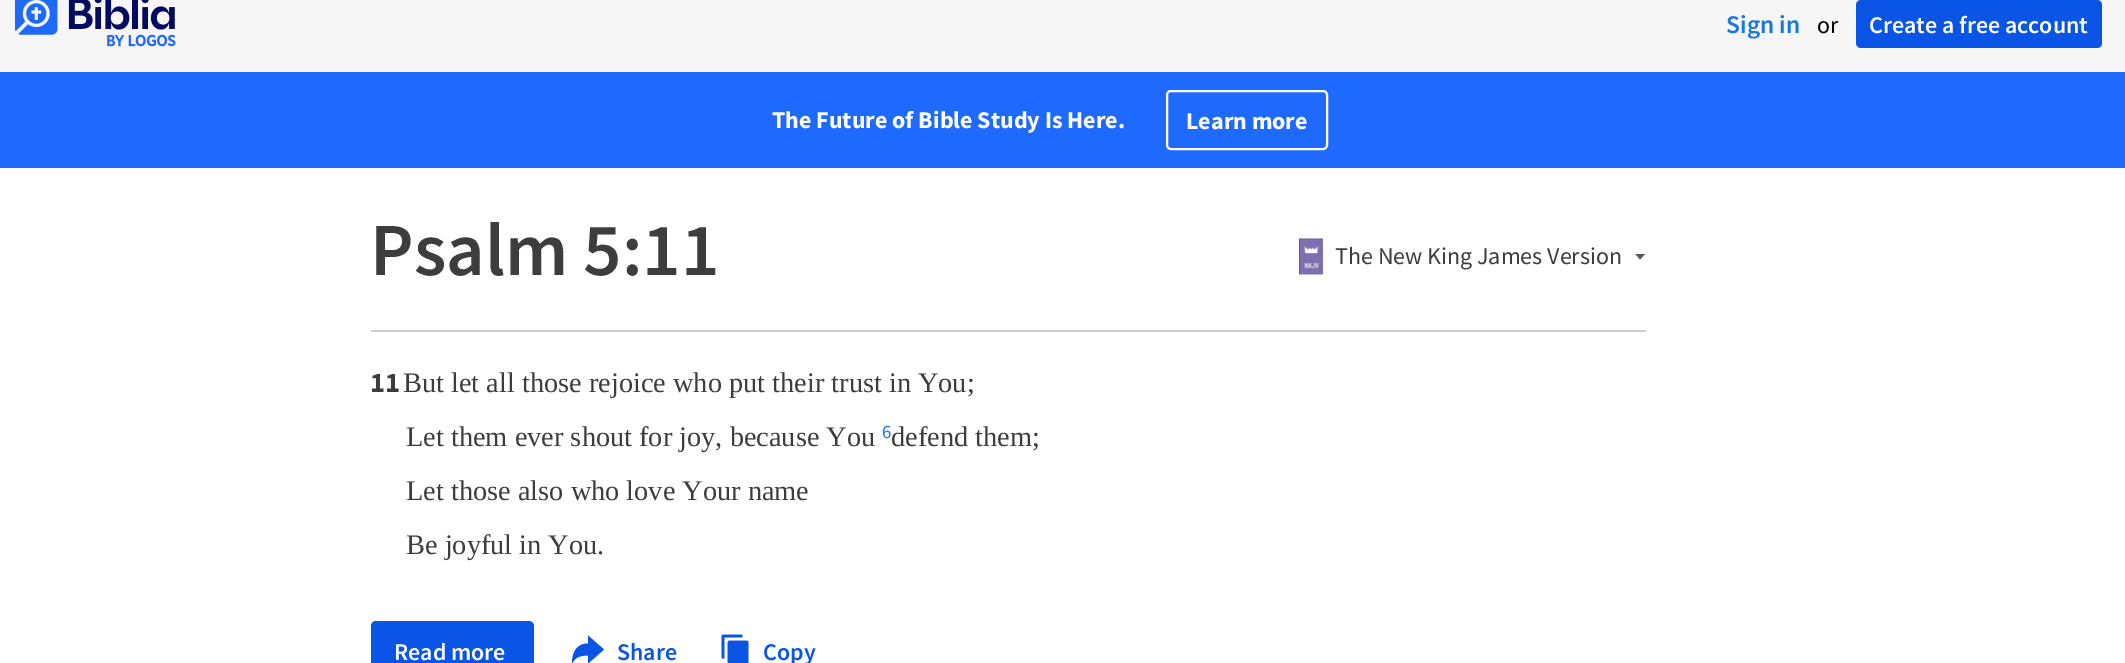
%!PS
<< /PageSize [2125 663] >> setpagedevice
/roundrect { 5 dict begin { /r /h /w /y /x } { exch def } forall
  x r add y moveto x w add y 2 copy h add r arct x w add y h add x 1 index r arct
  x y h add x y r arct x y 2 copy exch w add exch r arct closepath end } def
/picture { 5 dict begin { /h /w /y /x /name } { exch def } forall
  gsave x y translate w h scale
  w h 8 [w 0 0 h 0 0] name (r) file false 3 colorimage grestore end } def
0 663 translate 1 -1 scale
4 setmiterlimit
0.965 setgray
0 0 2125 663 rectfill
(img1.rgb) 15 0 161 47 picture
/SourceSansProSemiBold-SemiBold [25.5 0 0 -25.5 0 0] selectfont
0.098 0.467 0.871 setrgbcolor
1726 33 moveto (Sign in) show
/SourceSansPro-Regular [24 0 0 -24 0 0] selectfont
0 setgray
1817 33 moveto (or) show
0.039 0.333 0.902 setrgbcolor
1856 0 246 48 5 roundrect fill
/SourceSansProSemiBold-SemiBold [24 0 0 -24 0 0] selectfont
1 setgray
1869 33 moveto (Create a free account) show
0.118 0.416 0.996 setrgbcolor
0 72 2125 96 rectfill
/SourceSansPro-Bold [24 0 0 -24 0 0] selectfont
1 setgray
772 128 moveto (The Future of Bible Study Is Here.) show
2 setlinewidth
1167 91 160 58 4 roundrect stroke
1186 129 moveto (Learn more) show
-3 168 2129 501 6 roundrect fill
0.8 setgray
371 330 1275 2 rectfill
/SourceSansProSemiBold-SemiBold [75 0 0 -75 0 0] selectfont
0.239 setgray
370 275 moveto (Psalm 5:11) show
(img2.rgb) 1299 238 24 37 picture
/SourceSansPro-Regular [24 0 0 -24 0 0] selectfont
1335 264 moveto (The New King James Version) show
gsave
1635 254 11 6 rectclip
0.345 setgray
newpath 1640 259.5 moveto 1645.5 253.5 lineto 1635 253.5 lineto closepath eofill
grestore
/SourceSansPro-Bold [28.35 0 0 -28.35 0 0] selectfont
370 392 moveto (11) show
/LiberationSerif-Regular [28.35 0 0 -28.35 0 0] selectfont
403 392 moveto (But let all those rejoice who put their trust in You;) show
406 446 moveto (Let them ever shout for joy, because You) show
/SourceSansPro-Regular [19 0 0 -19 0 0] selectfont
0.098 0.467 0.871 setrgbcolor
882 438 moveto (6) show
/LiberationSerif-Regular [28.35 0 0 -28.35 0 0] selectfont
0.239 setgray
891 446 moveto (defend them;) show
406 500 moveto (Let those also who love Your name) show
406 554 moveto (Be joyful in You.) show
0.039 0.333 0.902 setrgbcolor
371 621 163 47 5 roundrect fill
/SourceSansProSemiBold-SemiBold [24 0 0 -24 0 0] selectfont
1 setgray
394 660 moveto (Read more) show
0.039 0.333 0.902 setrgbcolor
617 660 moveto (Share) show
newpath 588 643.5 moveto 588 635.5 lineto 604 649.5 lineto 588 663.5 lineto 588 655.5 lineto 577.5 655.5 575 658.5 572 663.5 curveto 572 651 577.5 643.5 588 643.5 curveto closepath eofill
(img3.rgb) 721 634 28 29 picture
763 660 moveto (Copy) show
showpage
